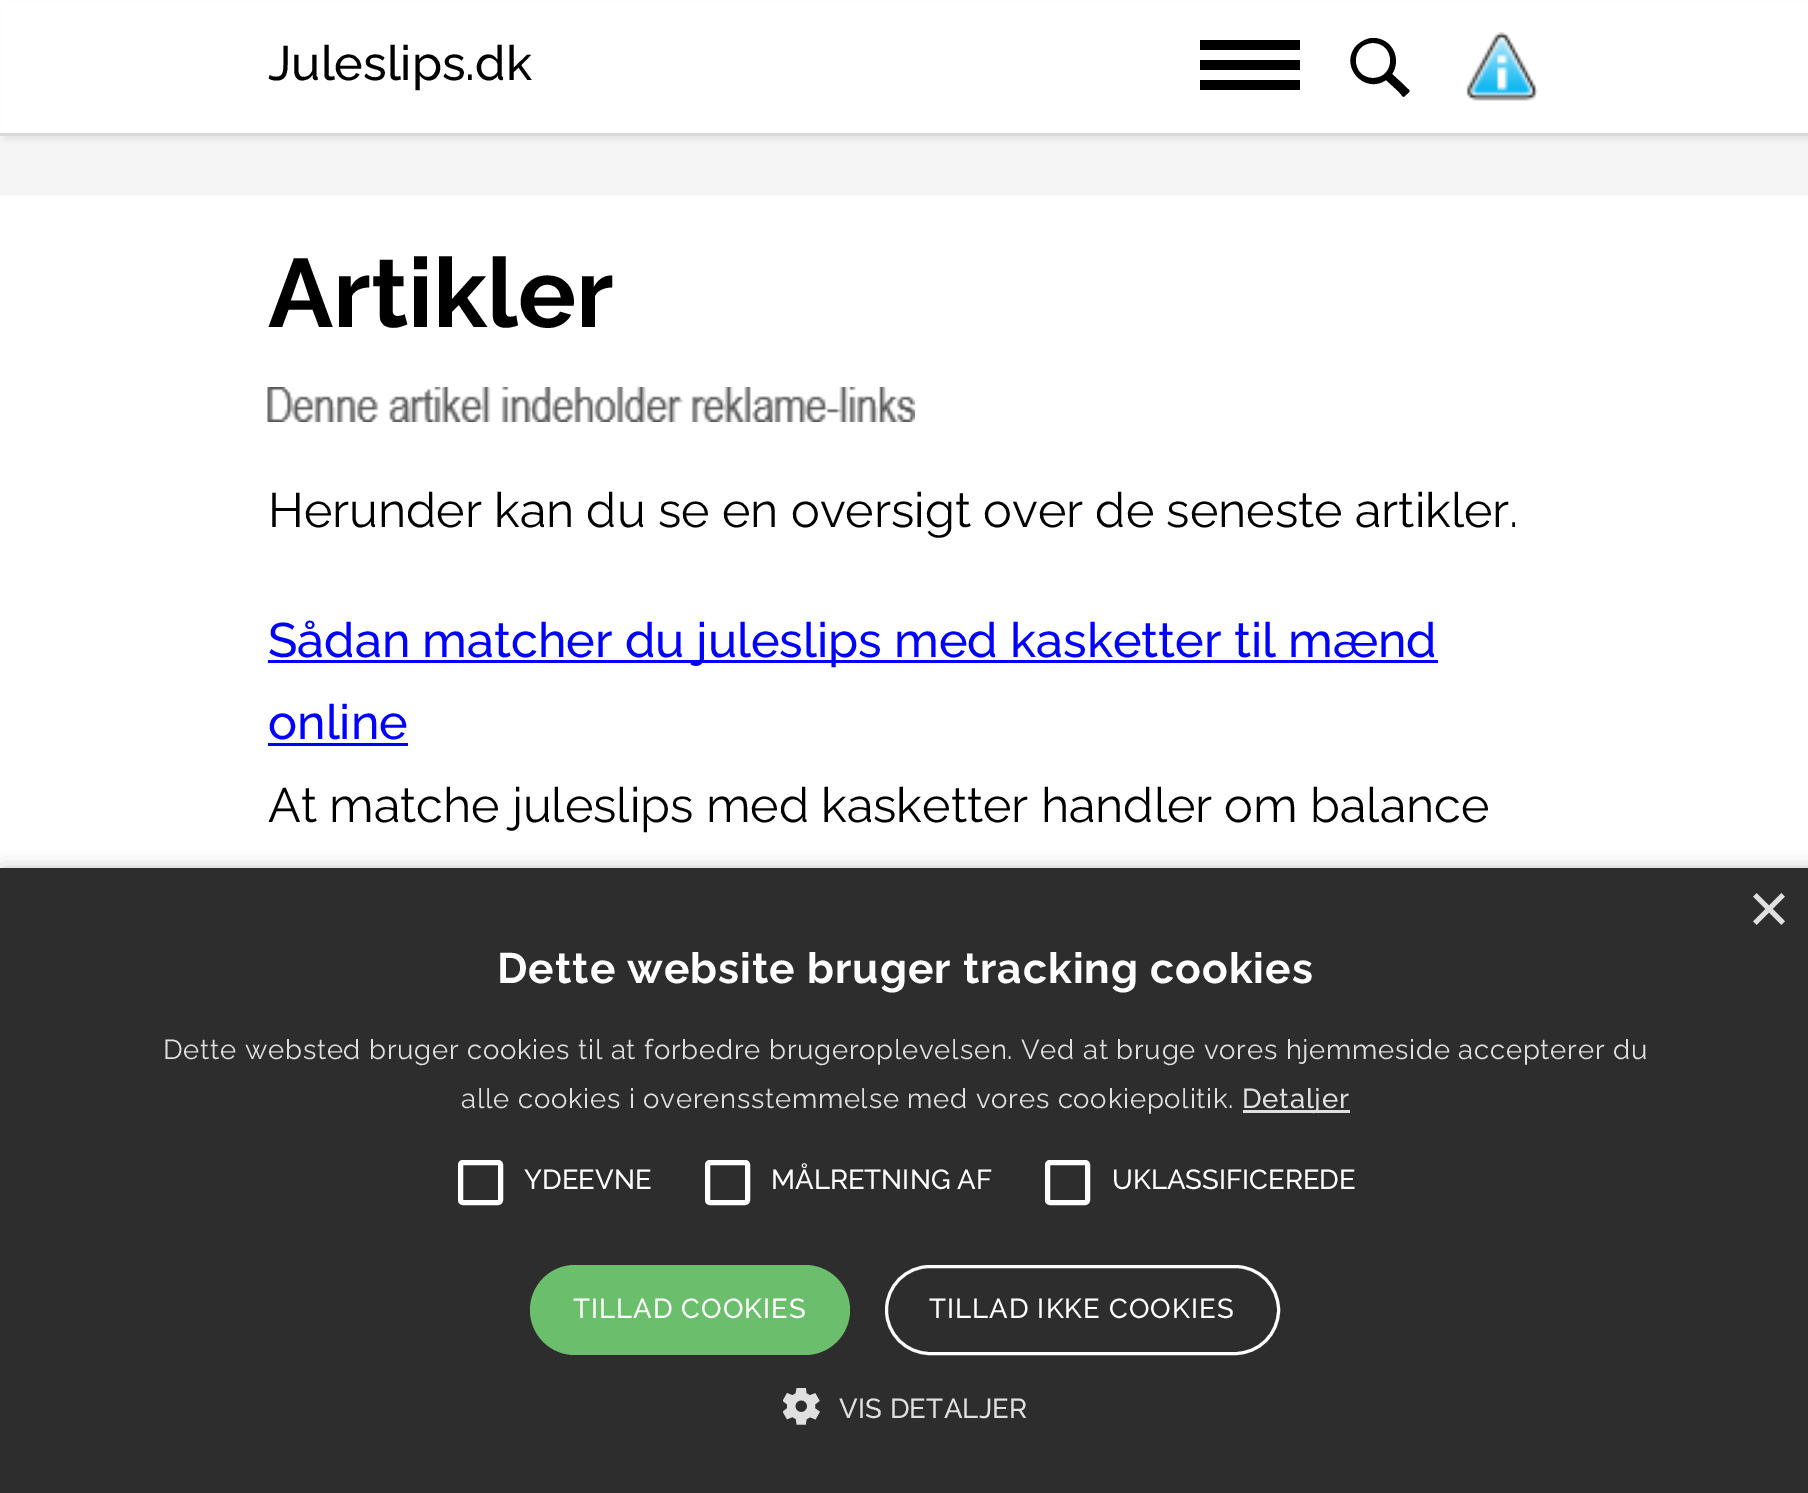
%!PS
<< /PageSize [1808 1493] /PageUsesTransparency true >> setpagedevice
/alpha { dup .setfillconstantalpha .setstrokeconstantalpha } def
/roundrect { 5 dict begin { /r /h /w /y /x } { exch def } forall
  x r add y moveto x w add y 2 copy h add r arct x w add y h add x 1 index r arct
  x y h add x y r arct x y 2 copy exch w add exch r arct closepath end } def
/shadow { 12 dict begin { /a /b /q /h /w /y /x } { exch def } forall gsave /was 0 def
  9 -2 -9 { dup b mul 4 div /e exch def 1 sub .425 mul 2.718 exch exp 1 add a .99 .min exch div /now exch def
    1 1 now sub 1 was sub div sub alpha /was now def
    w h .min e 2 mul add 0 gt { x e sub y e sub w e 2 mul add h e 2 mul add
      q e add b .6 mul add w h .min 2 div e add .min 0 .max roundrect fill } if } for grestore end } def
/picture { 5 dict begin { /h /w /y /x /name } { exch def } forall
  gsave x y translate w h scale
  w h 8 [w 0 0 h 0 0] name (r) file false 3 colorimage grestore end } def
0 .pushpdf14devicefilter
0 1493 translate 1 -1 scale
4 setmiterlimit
1 setgray
0 0 1808 1493 rectfill
0.961 setgray
0 136 1808 59 rectfill
0.671 setgray
5 5 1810 135 0 2.5 0.2 shadow
1 setgray
2 2 1806 131 rectfill
0.851 setgray
0 133 1808 3 rectfill
/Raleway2-Thin [48.4 0 0 -48.4 0 0] selectfont
0 setgray
268 80 moveto (Juleslips.dk) show
1200 40 100 10 rectfill
1200 60 100 10 rectfill
1200 80 100 10 rectfill
newpath 1373 38 moveto 1367 38 1362 41 1357 45 curveto 1338 65 1364 95 1386 80 curveto 1398 91 lineto 1404 97 1402 99 1407 94 curveto 1412 90 1409 91 1404 85 curveto 1392 74 lineto 1402 59 1392 38 1373 38 curveto closepath 1373 78 moveto 1350 78 1350 43 1373 43 curveto 1396 43 1396 78 1373 78 curveto closepath fill
(img1.rgb) 1466 32 72 69 picture
/Raleway-Thin [97 0 0 -97 0 0] selectfont
268 327 moveto (Artikler) show
(img2.rgb) 267 387 648 35 picture
/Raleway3-Thin [48.4 0 0 -48.4 0 0] selectfont
268 527 moveto (Herunder kan du se en oversigt over de seneste artikler.) show
0 0 1 setrgbcolor
268 660 1170 3 rectfill
/Raleway2-Thin [48.4 0 0 -48.4 0 0] selectfont
268 657 moveto (Sådan matcher du juleslips med kasketter til mænd) show
268 739 moveto (online) show
268 743 140 3 rectfill
/Raleway3-Thin [48.4 0 0 -48.4 0 0] selectfont
0 setgray
268 822 moveto (At matche juleslips med kasketter handler om balance) show
3 873 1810 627 0 10 0.35 shadow
0.176 setgray
0 868 1808 625 rectfill
/LiberationSans-Regular [72 0 0 -72 0 0] selectfont
0.878 setgray
1748 933 moveto (×) show
/Raleway-Thin [42.5 0 0 -42.5 0 0] selectfont
1 setgray
497 983 moveto 1 0 (Dette website bruger tracking cookies) ashow
/Raleway3-Thin [27.5 0 0 -27.5 0 0] selectfont
0.878 setgray
163 1059 moveto 0.75 0 (Dette websted bruger cookies til at forbedre brugeroplevelsen. Ved at bruge vores hjemmeside accepterer du) ashow
461 1108 moveto 0.75 0 (alle cookies i overensstemmelse med vores cookiepolitik.) ashow
1243 1110 107 3 rectfill
/Raleway2-Thin [27.5 0 0 -27.5 0 0] selectfont
1242 1108 moveto 0.75 0 (Detaljer) ashow
1 setgray
5 setlinewidth
460.5 1162.5 40 40 2.5 roundrect stroke
524 1189 moveto (YDEEVNE) show
707.5 1162.5 40 40 2.5 roundrect stroke
771 1189 moveto (MÅLRETNING AF) show
1047.5 1162.5 40 40 2.5 roundrect stroke
1112 1189 moveto (UKLASSIFICEREDE) show
0.42 0.745 0.42 setrgbcolor
530 1265 320 90 45 roundrect fill
1 setgray
573 1318 moveto 1 0 (TILLAD COOKIES) ashow
3 setlinewidth
886.5 1266.5 392 87 43.5 roundrect stroke
929 1318 moveto 1 0 (TILLAD IKKE COOKIES) ashow
(img3.rgb) 783 1388 37 37 picture
0.878 setgray
839 1418 moveto 0.25 0 (VIS DETALJER) ashow
.poppdf14devicefilter showpage
